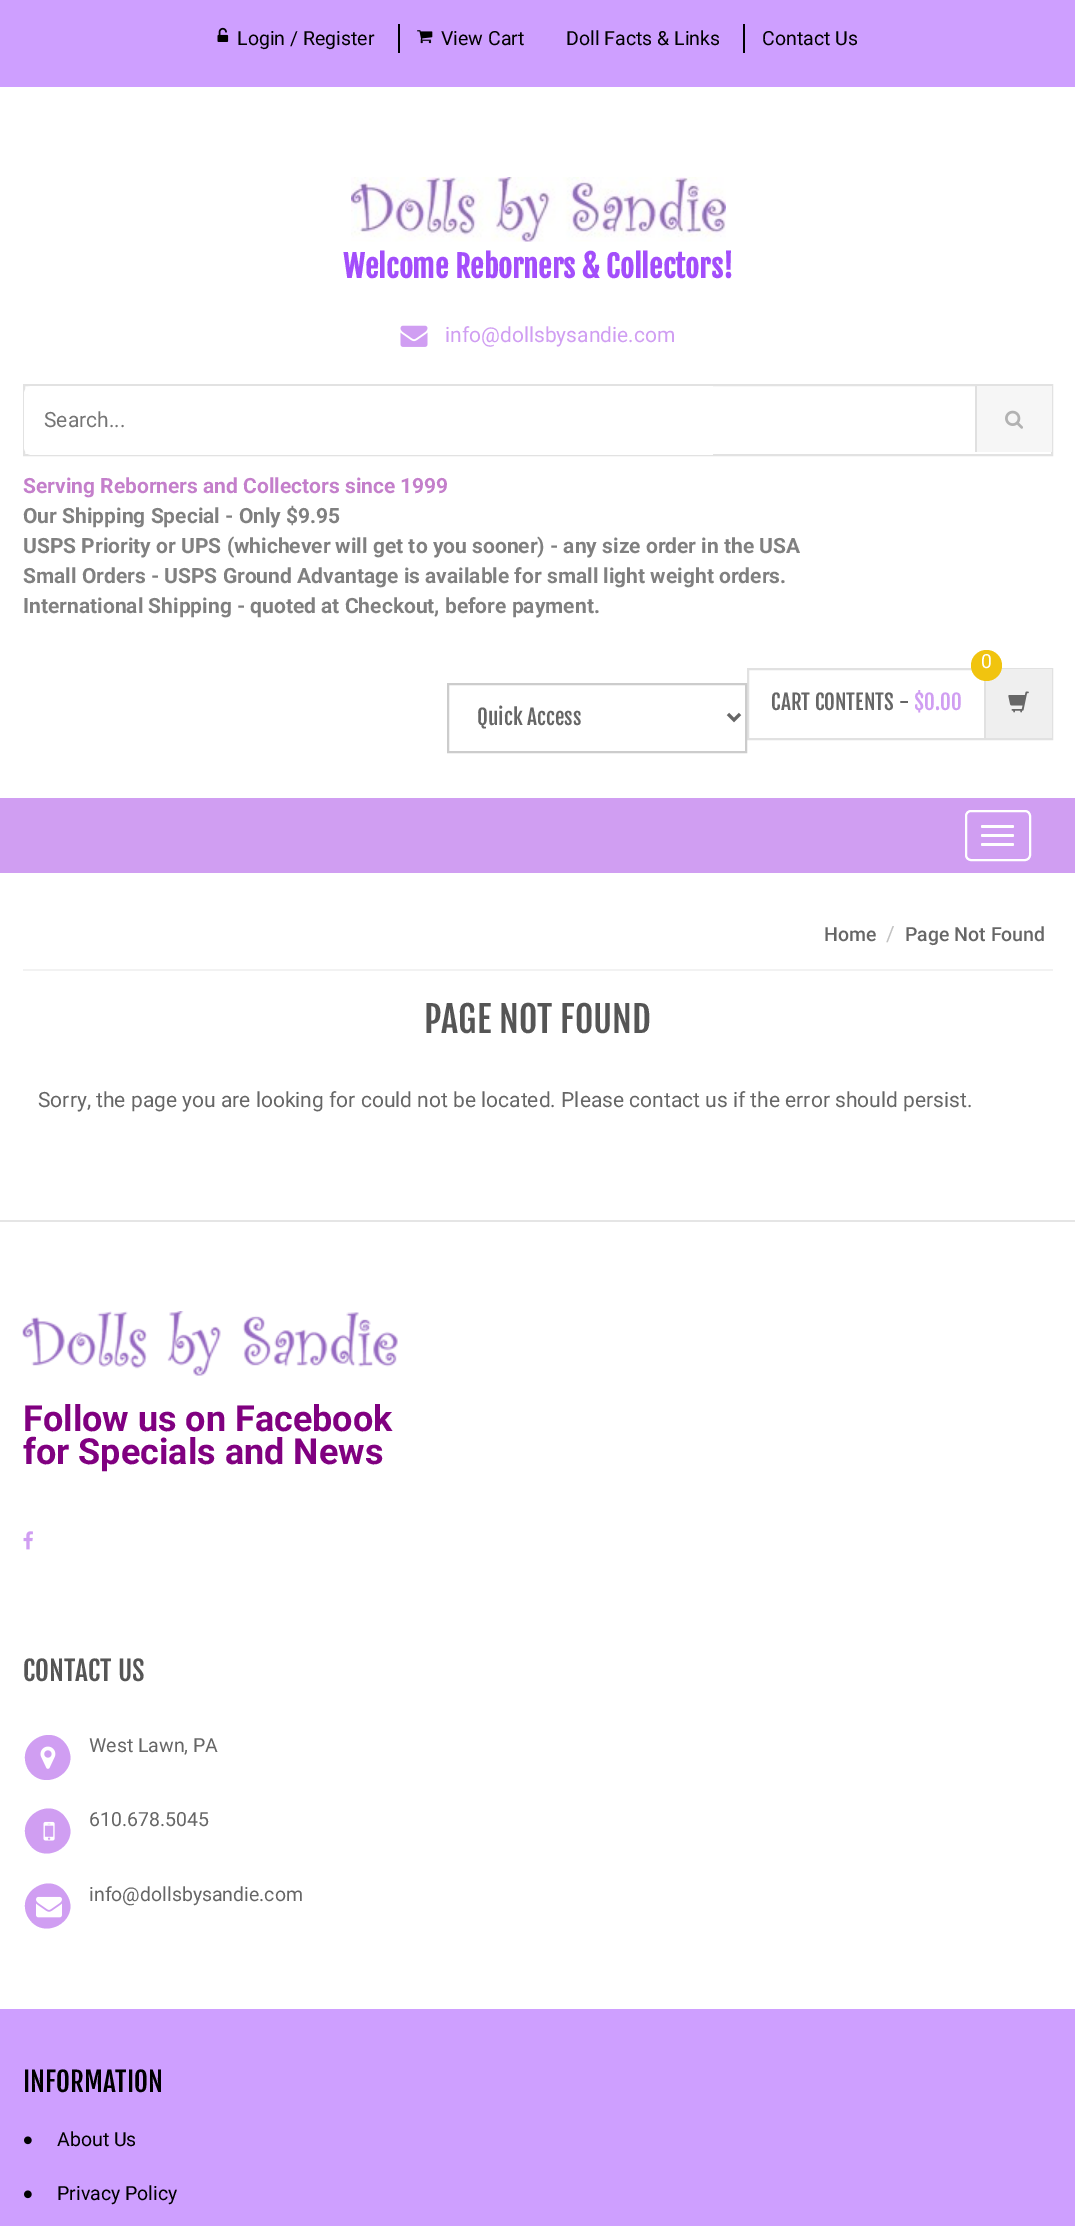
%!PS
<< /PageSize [1075 2226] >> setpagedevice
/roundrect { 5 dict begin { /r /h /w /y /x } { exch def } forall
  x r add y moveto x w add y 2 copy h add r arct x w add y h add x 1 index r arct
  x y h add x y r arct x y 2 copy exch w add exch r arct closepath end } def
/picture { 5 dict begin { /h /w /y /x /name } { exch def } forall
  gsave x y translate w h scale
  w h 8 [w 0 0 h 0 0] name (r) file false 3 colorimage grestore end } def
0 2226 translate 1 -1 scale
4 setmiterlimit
1 setgray
0 0 1075 2226 rectfill
0.808 0.624 1 setrgbcolor
0 0 1075 87 rectfill
(img1.rgb) 217 27 12 15 picture
/Roboto-Regular [19.5 0 0 -19.5 0 0] selectfont
0 setgray
237 45 moveto (Login / Register) show
398 24 2 29 rectfill
(img2.rgb) 417 30 16 14 picture
441 45 moveto (View Cart) show
566 45 moveto (Doll Facts & Links) show
743 24 2 29 rectfill
762 45 moveto (Contact Us) show
(img3.rgb) 351 177 375 65 picture
/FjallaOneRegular-Bold [30 0 0 -30 0 0] selectfont
0.639 0.306 0.984 setrgbcolor
343 278 moveto (Welcome Reborners & Collectors!) show
(img4.rgb) 400 325 28 22 picture
/Roboto-Regular [21 0 0 -21 0 0] selectfont
0.816 0.62 0.949 setrgbcolor
445 342 moveto (info@dollsbysandie.com) show
0.886 setgray
2 setlinewidth
24 385 1028 70 rectstroke
1 setgray
newpath 32 386 moveto 713 386 lineto 713 455 lineto 32 455 lineto 27.5 455 24 451.5 24 447 curveto 24 394 lineto 24 389.5 27.5 386 32 386 curveto closepath fill
0.459 setgray
44 427 moveto (Search...) show
0.965 setgray
977 386 75 66 rectfill
0.878 setgray
975 386 2 66 rectfill
(img5.rgb) 1005 410 18 19 picture
/Roboto-Bold [21 0 0 -21 0 0] selectfont
0.769 0.498 0.796 setrgbcolor
23 493 moveto (Serving Reborners and Collectors since 1999) show
0.502 setgray
23 523 moveto (Our Shipping Special - Only $9.95) show
23 553 moveto (USPS Priority or UPS \(whichever will get to you sooner\) - any size order in the USA) show
23 583 moveto (Small Orders - USPS Ground Advantage is available for small light weight orders.) show
23 613 moveto (International Shipping - quoted at Checkout, before payment.) show
0.882 setgray
748 669 304 70 rectstroke
0.937 setgray
986 669 66 69 rectfill
0.882 setgray
984 680 2 58 rectfill
0.945 0.769 0.059 setrgbcolor
newpath 986.5 665.5 15.5 0 360 arc closepath fill
/Roboto-Regular [19.5 0 0 -19.5 0 0] selectfont
1 setgray
981 668 moveto (0) show
/FjallaOneRegular-Regular [21 0 0 -21 0 0] selectfont
0.4 setgray
771 710 moveto (CART CONTENTS -) show
0.816 0.62 0.949 setrgbcolor
914 710 moveto ($0.00) show
(img6.rgb) 1008 691 21 22 picture
0.8 setgray
448 684 298 68 rectstroke
0.4 setgray
3 setlinewidth
newpath 728 714 moveto 734 720 lineto 740 714 lineto stroke
477 725 moveto (Quick Access) show
0.816 0.62 0.949 setrgbcolor
0 798 1075 75 rectfill
1 setgray
2 setlinewidth
966 811 64 49 5 roundrect stroke
981 825 33 3 1.5 roundrect fill
981 834 33 3 1.5 roundrect fill
981 843 33 3 1.5 roundrect fill
0.949 setgray
23 969 1030 2 rectfill
/Roboto-Medium [19.5 0 0 -19.5 0 0] selectfont
0.4 setgray
824 941 moveto (Home) show
/Roboto-Regular [21 0 0 -21 0 0] selectfont
0.761 setgray
886 941 moveto (/) show
/Roboto-Medium [19.5 0 0 -19.5 0 0] selectfont
0.4 setgray
905 941 moveto (Page Not Found) show
/FjallaOneRegular-Regular [36 0 0 -36 0 0] selectfont
0.333 setgray
424 1033 moveto (PAGE NOT FOUND) show
/Roboto-Regular [21 0 0 -21 0 0] selectfont
0.4 setgray
38 1107 moveto (Sorry, the page you are looking for could not be located. Please contact us if the error should persist.) show
0.898 setgray
0 1220 1075 2 rectfill
(img7.rgb) 22 1311 376 65 picture
/Roboto-Bold [36 0 0 -36 0 0] selectfont
0.502 0 0.502 setrgbcolor
23 1431 moveto (Follow us on Facebook) show
23 1464 moveto (for Specials and News) show
(img8.rgb) 23 1531 10 19 picture
/FjallaOneRegular-Regular [27 0 0 -27 0 0] selectfont
0.333 setgray
23 1681 moveto (CONTACT US) show
0.816 0.62 0.949 setrgbcolor
newpath 67 1746 moveto 82 1772 43 1794 28 1769 curveto 14 1743 52 1721 67 1746 curveto closepath fill
(img9.rgb) 40 1746 16 23 picture
/Roboto-Regular [19.5 0 0 -19.5 0 0] selectfont
0.4 setgray
89 1752 moveto (West Lawn, PA) show
0.816 0.62 0.949 setrgbcolor
newpath 67 1820 moveto 82 1845 43 1868 28 1842 curveto 14 1817 52 1794 67 1820 curveto closepath fill
(img10.rgb) 43 1821 12 20 picture
0.4 setgray
89 1826 moveto (610.678.5045) show
0.816 0.62 0.949 setrgbcolor
newpath 67 1895 moveto 82 1920 43 1943 28 1917 curveto 14 1892 52 1869 67 1895 curveto closepath fill
(img11.rgb) 36 1896 26 22 picture
0.4 setgray
89 1901 moveto (info@dollsbysandie.com) show
0.808 0.624 1 setrgbcolor
0 2009 1075 217 rectfill
/FjallaOneRegular-Regular [27 0 0 -27 0 0] selectfont
0 setgray
23 2092 moveto (INFORMATION) show
(img12.rgb) 24 2136 8 9 picture
/Roboto-Regular [19.5 0 0 -19.5 0 0] selectfont
57 2146 moveto (About Us) show
(img12.rgb) 24 2190 8 9 picture
57 2200 moveto (Privacy Policy) show
showpage
